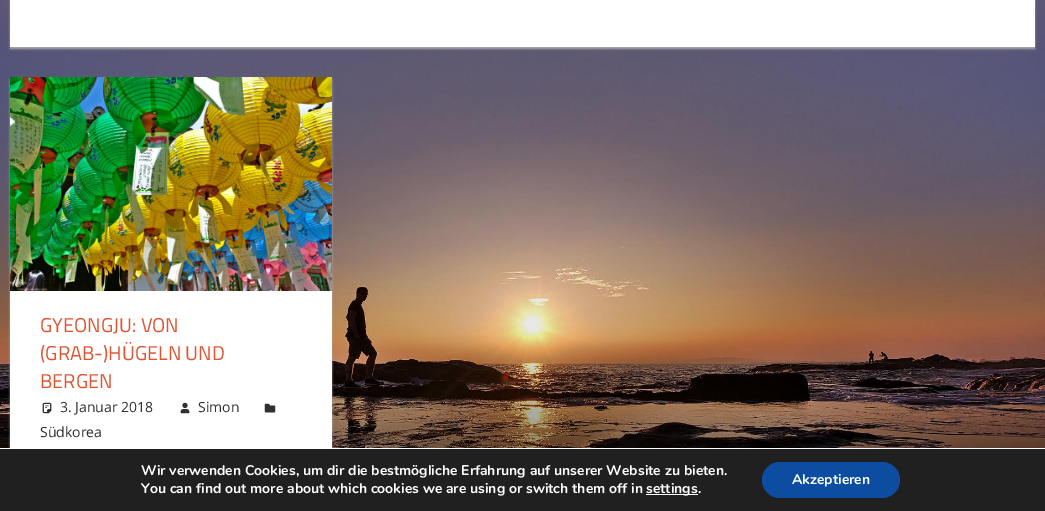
%!PS
<< /PageSize [1045 511] /PageUsesTransparency true >> setpagedevice
/alpha { dup .setfillconstantalpha .setstrokeconstantalpha } def
/roundrect { 5 dict begin { /r /h /w /y /x } { exch def } forall
  x r add y moveto x w add y 2 copy h add r arct x w add y h add x 1 index r arct
  x y h add x y r arct x y 2 copy exch w add exch r arct closepath end } def
/shadow { 12 dict begin { /a /b /q /h /w /y /x } { exch def } forall gsave /was 0 def
  9 -2 -9 { dup b mul 4 div /e exch def 1 sub .425 mul 2.718 exch exp 1 add a .99 .min exch div /now exch def
    1 1 now sub 1 was sub div sub alpha /was now def
    w h .min e 2 mul add 0 gt { x e sub y e sub w e 2 mul add h e 2 mul add
      q e add b .6 mul add w h .min 2 div e add .min 0 .max roundrect fill } if } for grestore end } def
/picture { 5 dict begin { /h /w /y /x /name } { exch def } forall
  gsave x y translate w h scale
  w h 8 [w 0 0 h 0 0] name (r) file false 3 colorimage grestore end } def
0 .pushpdf14devicefilter
0 511 translate 1 -1 scale
4 setmiterlimit
1 setgray
0 0 1045 511 rectfill
(img1.rgb) 0 0 1045 448 picture
0.667 setgray
10 -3 1025 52 0 1 1 shadow
1 setgray
10 0 1025 47 rectfill
0.667 setgray
10 79 322 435 0 1 1 shadow
1 setgray
10 291 322 157 rectfill
(img2.rgb) 10 77 322 214 picture
/TitilliumWeb-Regular [20 0 0 -20 0 0] selectfont
0.867 0.333 0.2 setrgbcolor
40 332 moveto (GYEONGJU: VON) show
40 360 moveto (\(GRAB-\)HÜGELN UND) show
40 388 moveto (BERGEN) show
(img3.rgb) 42 402 10 12 picture
/OpenSans-Regular [14 0 0 -14 0 0] selectfont
0.188 setgray
60 412 moveto (3. Januar 2018) show
(img4.rgb) 180 402 10 12 picture
198 412 moveto (Simon) show
(img5.rgb) 264 403 12 10 picture
40 437 moveto (Südkorea) show
0.125 setgray
0 449 1045 62 rectfill
1 setgray
0 448 334 1 rectfill
/Nunito-Bold [14 0 0 -14 0 0] selectfont
141 475 moveto (Wir verwenden Cookies, um dir die bestmögliche Erfahrung auf unserer Website zu bieten.) show
141 493 moveto (You can find out more about which cookies we are using or switch them off in) show
646 494 52 1 rectfill
646 493 moveto (settings.) show
0.047 0.302 0.635 setrgbcolor
762 462 138 36 18 roundrect fill
1 setgray
792 484 moveto (Akzeptieren) show
.poppdf14devicefilter showpage
